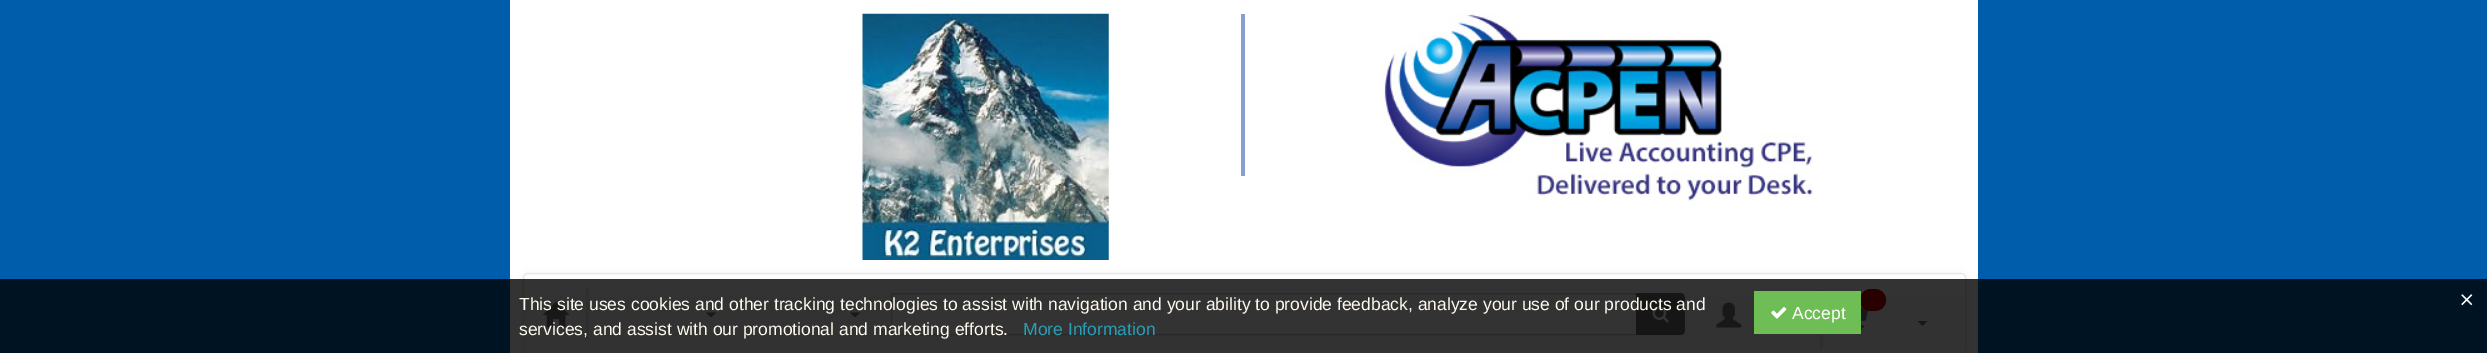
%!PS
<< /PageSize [2487 353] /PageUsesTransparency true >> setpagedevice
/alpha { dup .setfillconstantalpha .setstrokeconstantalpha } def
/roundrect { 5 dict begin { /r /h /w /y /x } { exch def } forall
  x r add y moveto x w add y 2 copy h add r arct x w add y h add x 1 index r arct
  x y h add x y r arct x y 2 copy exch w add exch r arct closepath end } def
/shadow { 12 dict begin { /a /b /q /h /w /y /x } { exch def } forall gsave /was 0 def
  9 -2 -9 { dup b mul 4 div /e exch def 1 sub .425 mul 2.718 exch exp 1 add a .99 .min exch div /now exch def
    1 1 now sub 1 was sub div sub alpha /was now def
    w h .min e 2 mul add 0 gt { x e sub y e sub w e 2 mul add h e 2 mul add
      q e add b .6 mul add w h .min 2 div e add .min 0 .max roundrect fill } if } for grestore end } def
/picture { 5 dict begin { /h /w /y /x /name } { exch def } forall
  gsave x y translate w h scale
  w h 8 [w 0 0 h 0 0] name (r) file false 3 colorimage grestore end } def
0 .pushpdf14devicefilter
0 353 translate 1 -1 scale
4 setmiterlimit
0 0.365 0.675 setrgbcolor
0 0 2487 353 rectfill
1 setgray
510 0 1468 353 rectfill
(img1.rgb) 862 13 247 247 picture
0.533 0.62 0.82 setrgbcolor
1241 14 4 162 rectfill
(img2.rgb) 1380 14 433 187 picture
0 setgray
523 274 1443 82 5 3 0.07 shadow
gsave
523 273 1443 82 5 roundrect clip newpath
gsave newpath 523 274 moveto 1966 274 lineto 1966 353 lineto 523 353 lineto closepath clip newpath
<< /ShadingType 2 /ColorSpace /DeviceRGB /Coords [1244 274 1244 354] /Extend [true true] /Function << /FunctionType 2 /Domain [0 1] /C0 [1 1 1] /C1 [0.973 0.973 0.973] /N 1 >> >> shfill grestore
grestore
gsave newpath 1820 289 moveto 1823 289 lineto 1823 349 lineto 1820 349 lineto closepath clip newpath
<< /ShadingType 2 /ColorSpace /DeviceRGB /Coords [1244 274 1244 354] /Extend [true true] /Function << /FunctionType 2 /Domain [0 1] /C0 [0.922 0.922 0.922] /C1 [0.898 0.898 0.898] /N 1 >> >> shfill grestore
gsave newpath 586 288 moveto 589 288 lineto 589 339 lineto 586 339 lineto closepath clip newpath
<< /ShadingType 2 /ColorSpace /DeviceRGB /Coords [1244 274 1244 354] /Extend [true true] /Function << /FunctionType 2 /Domain [0 1] /C0 [0.922 0.922 0.922] /C1 [0.898 0.898 0.898] /N 1 >> >> shfill grestore
0.906 setgray
523.5 273.5 1442 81 4.5 roundrect stroke
(img3.rgb) 542 301 28 27 picture
0.467 setgray
newpath 706 312.5 moveto 716 312.5 lineto 711 317.5 lineto closepath fill
newpath 850 312.5 moveto 860 312.5 lineto 855 317.5 lineto closepath fill
1 setgray
892 303 744 31 rectfill
0.925 setgray
893 294 743 1 rectfill
0.8 setgray
891.5 293.5 746 41 rectstroke
0.431 setgray
newpath 1636 293 moveto 1680 293 lineto 1683 293 1685 295 1685 298 curveto 1685 330 lineto 1685 333 1683 335 1680 335 curveto 1636 335 lineto closepath fill
(img4.rgb) 1652 306 17 17 picture
(img5.rgb) 1716 302 26 26 picture
(img6.rgb) 1861 307 7 23 picture
0.8 0 0 setrgbcolor
1860 289 26 22 11 roundrect fill
0.467 setgray
newpath 1917.5 321 moveto 1927.5 321 lineto 1922.5 326 lineto closepath fill
0.8 alpha
0 setgray
0 279 2487 74 rectfill
/LiberationSans-Regular [17.5 0 0 -17.5 0 0] selectfont
1 alpha
1 0.98 0.941 setrgbcolor
519 310 moveto (This site uses cookies and other tracking technologies to assist with navigation and your ability to provide feedback, analyze your use of our products and) show
519 335 moveto (services, and assist with our promotional and marketing efforts.) show
0.157 0.624 0.718 setrgbcolor
1023 335 moveto (More Information) show
0.435 0.741 0.333 setrgbcolor
1754 291 107 43 rectfill
(img7.rgb) 1771 307 16 12 picture
1 setgray
1792 319 moveto (Accept) show
(img8.rgb) 2461 294 12 12 picture
.poppdf14devicefilter showpage
